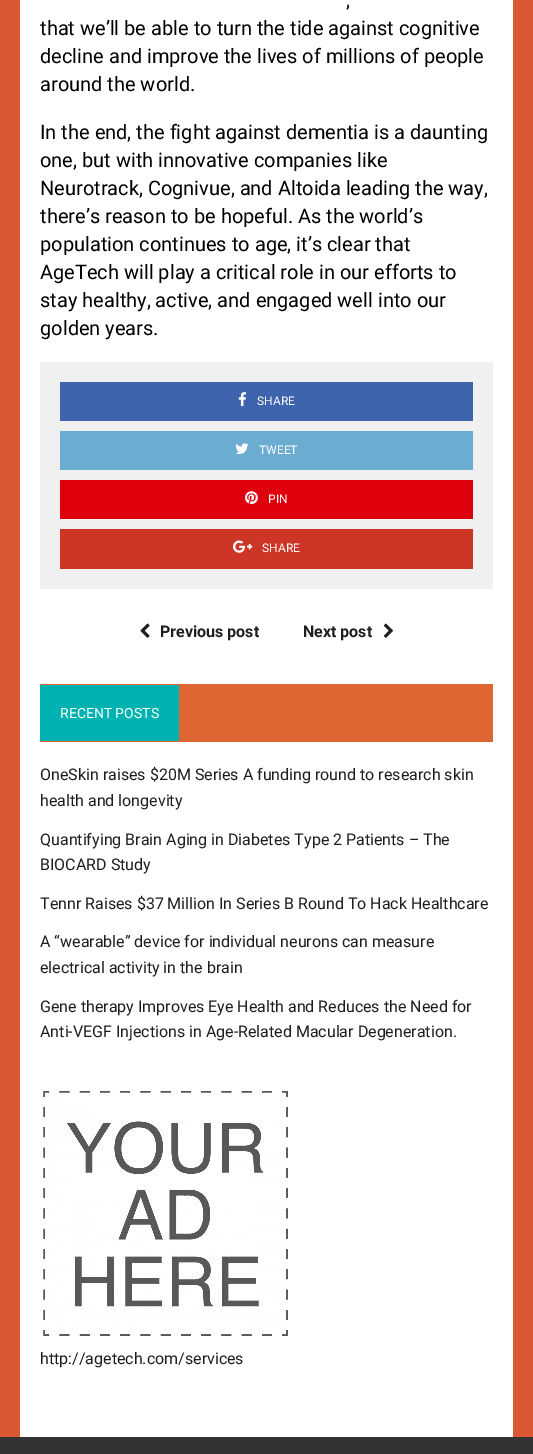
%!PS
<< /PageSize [533 1454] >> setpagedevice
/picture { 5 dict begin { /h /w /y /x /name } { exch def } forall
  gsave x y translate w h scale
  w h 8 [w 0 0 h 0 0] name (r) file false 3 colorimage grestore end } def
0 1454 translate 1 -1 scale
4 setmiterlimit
0.859 0.349 0.196 setrgbcolor
0 0 533 1454 rectfill
1 setgray
20 0 493 1437 rectfill
/Roboto-Regular [20 0 0 -20 0 0] selectfont
0 setgray
346 7 moveto (,) show
40 35 moveto (that we’ll be able to turn the tide against cognitive) show
40 63 moveto (decline and improve the lives of millions of people) show
40 91 moveto (around the world.) show
40 139 moveto (In the end, the fight against dementia is a daunting) show
40 167 moveto (one, but with innovative companies like) show
40 195 moveto (Neurotrack, Cognivue, and Altoida leading the way,) show
40 223 moveto (there’s reason to be hopeful. As the world’s) show
40 251 moveto (population continues to age, it’s clear that) show
40 279 moveto (AgeTech will play a critical role in our efforts to) show
40 307 moveto (stay healthy, active, and engaged well into our) show
40 335 moveto (golden years.) show
0.941 setgray
40 362 453 227 rectfill
0.243 0.392 0.678 setrgbcolor
60 382 413 39 rectfill
(img1.rgb) 238 392 9 15 picture
/Roboto-Regular [12 0 0 -12 0 0] selectfont
1 setgray
257 405 moveto (SHARE) show
0.416 0.678 0.82 setrgbcolor
60 431 413 39 rectfill
(img2.rgb) 235 443 14 11 picture
1 setgray
259 454 moveto (TWEET) show
0.871 0.004 0.051 setrgbcolor
60 480 413 39 rectfill
(img3.rgb) 245 491 13 14 picture
1 setgray
268 503 moveto (PIN) show
0.804 0.212 0.153 setrgbcolor
60 529 413 40 rectfill
(img4.rgb) 233 540 20 13 picture
1 setgray
262 552 moveto (SHARE) show
(img5.rgb) 140 623 10 15 picture
/Roboto-Bold [16 0 0 -16 0 0] selectfont
0.122 0.118 0.118 setrgbcolor
160 637 moveto (Previous post) show
303 637 moveto (Next post) show
(img6.rgb) 383 623 10 15 picture
0.867 0.4 0.2 setrgbcolor
40 684 453 58 rectfill
0 0.698 0.698 setrgbcolor
40 685 139 56 rectfill
/Roboto-Regular [14 0 0 -14 0 0] selectfont
1 setgray
60 718 moveto (RECENT POSTS) show
/Roboto-Regular [16 0 0 -16 0 0] selectfont
0.122 0.118 0.118 setrgbcolor
40 780 moveto (OneSkin raises $20M Series A funding round to research skin) show
40 806 moveto (health and longevity) show
40 845 moveto (Quantifying Brain Aging in Diabetes Type 2 Patients – The) show
40 870 moveto (BIOCARD Study) show
40 909 moveto (Tennr Raises $37 Million In Series B Round To Hack Healthcare) show
40 947 moveto (A “wearable” device for individual neurons can measure) show
40 973 moveto (electrical activity in the brain) show
40 1012 moveto (Gene therapy Improves Eye Health and Reduces the Need for) show
40 1037 moveto (Anti-VEGF Injections in Age-Related Macular Degeneration.) show
(img7.rgb) 40 1088 248 248 picture
40 1364 moveto (http://agetech.com/services) show
0.2 setgray
0 1437 533 17 rectfill
showpage
